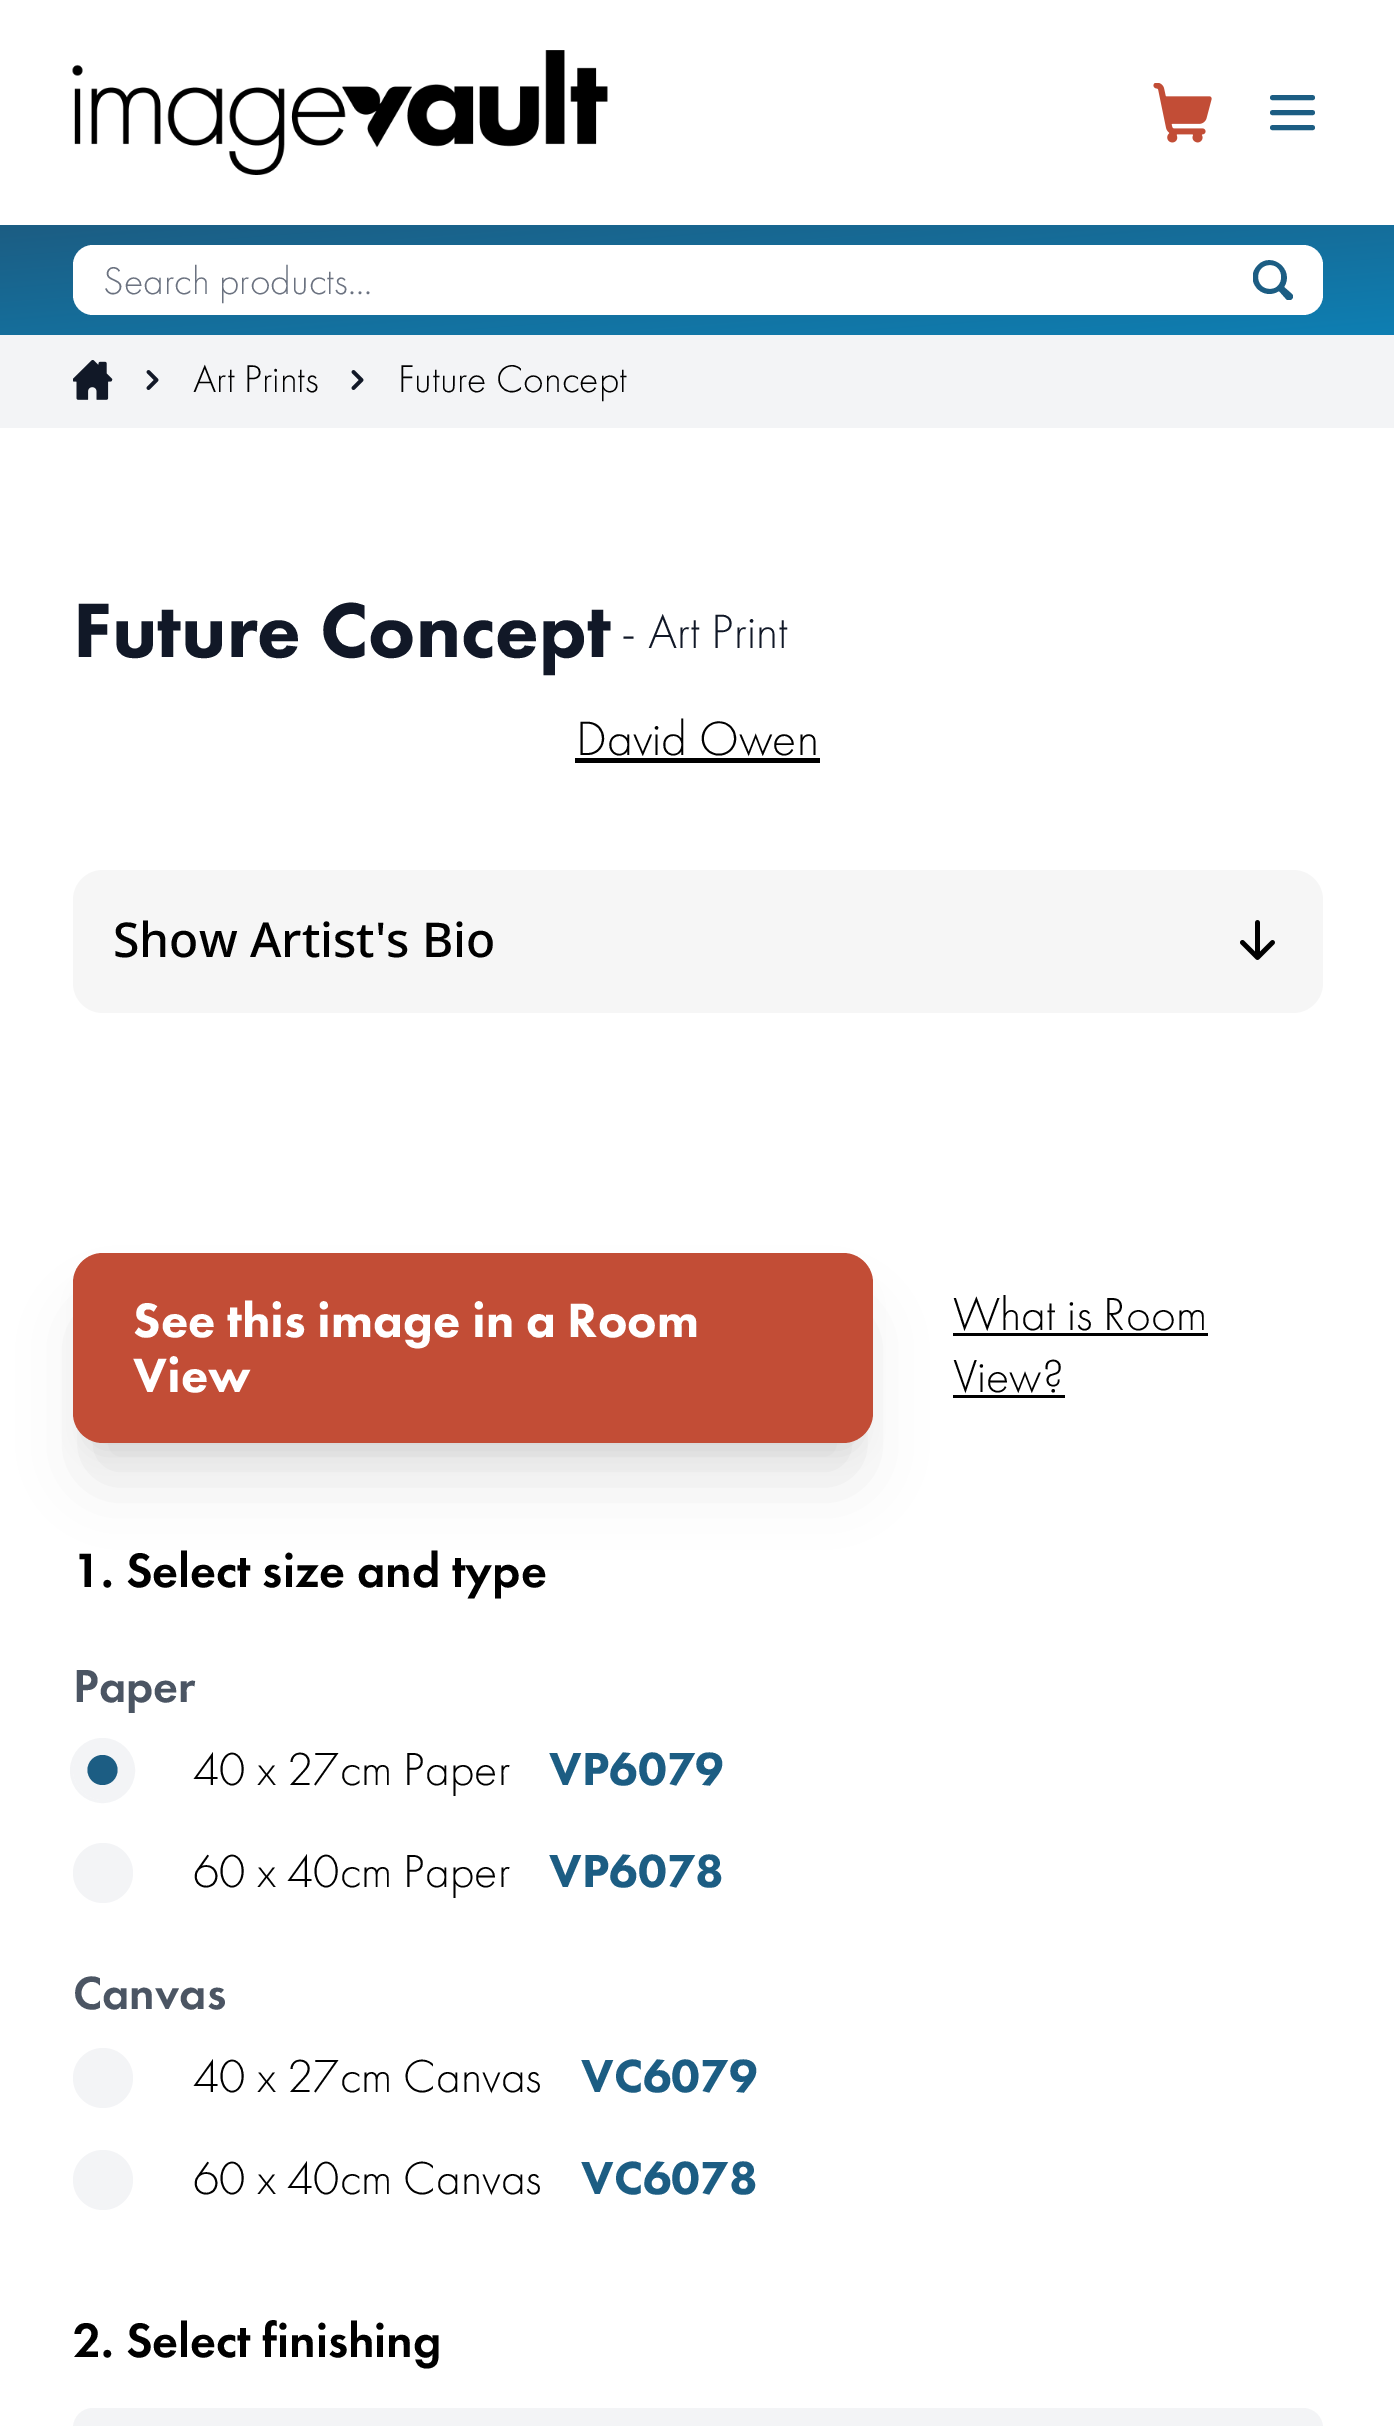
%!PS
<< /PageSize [1394 2426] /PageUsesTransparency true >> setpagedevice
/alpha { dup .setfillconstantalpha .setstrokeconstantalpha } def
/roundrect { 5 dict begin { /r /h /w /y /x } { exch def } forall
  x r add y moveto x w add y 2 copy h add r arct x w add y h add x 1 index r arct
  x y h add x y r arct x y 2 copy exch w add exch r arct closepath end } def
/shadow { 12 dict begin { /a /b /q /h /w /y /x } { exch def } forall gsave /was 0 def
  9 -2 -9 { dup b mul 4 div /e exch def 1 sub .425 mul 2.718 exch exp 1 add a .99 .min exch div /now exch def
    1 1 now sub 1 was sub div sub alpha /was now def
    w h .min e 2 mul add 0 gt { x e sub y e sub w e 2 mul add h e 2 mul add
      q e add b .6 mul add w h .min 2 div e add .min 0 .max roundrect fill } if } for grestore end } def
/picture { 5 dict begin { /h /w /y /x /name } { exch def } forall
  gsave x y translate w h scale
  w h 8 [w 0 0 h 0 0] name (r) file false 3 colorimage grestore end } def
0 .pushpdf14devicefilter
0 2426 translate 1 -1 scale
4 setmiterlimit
1 setgray
0 0 1394 2426 rectfill
(img1.rgb) 72 50 536 125 picture
(img2.rgb) 1153 83 59 60 picture
0.11 0.365 0.514 setrgbcolor
5 setlinewidth
1 setlinecap
1 setlinejoin
newpath 1272.5 97.5 moveto 1312.5 97.5 lineto 1272.5 112.5 moveto 1312.5 112.5 lineto 1272.5 127.5 moveto 1312.5 127.5 lineto stroke
gsave newpath 0 225 moveto 1394 225 lineto 1394 335 lineto 0 335 lineto closepath clip newpath
<< /ShadingType 2 /ColorSpace /DeviceRGB /Coords [689 171 706 389] /Extend [true true] /Function << /FunctionType 2 /Domain [0 1] /C0 [0.11 0.365 0.514] /C1 [0.055 0.498 0.702] /N 1 >> >> shfill grestore
1 setgray
73 245 1250 70 20 roundrect fill
/FuturaPT-Light [40 0 0 -40 0 0] selectfont
0.42 0.447 0.502 setrgbcolor
103 294 moveto (Search products...) show
gsave
1253 260 40 40 rectclip
0.11 0.365 0.514 setrgbcolor
newpath 1292 294 moveto 1284 287 lineto 1295 270 1272 251 1258 265 curveto 1243 280 1262 302 1279 291 curveto 1287 300 lineto 1291 302 1295 297 1292 294 curveto closepath 1270 265 moveto 1285 265 1285 289 1270 289 curveto 1254 289 1254 265 1270 265 curveto closepath fill
grestore
0.953 0.957 0.965 setrgbcolor
0 335 1394 93 rectfill
(img3.rgb) 73 360 40 40 picture
(img4.rgb) 146 370 13 20 picture
0 setgray
193 392 moveto (Art Prints) show
(img4.rgb) 351 370 13 20 picture
398 392 moveto (Future Concept) show
/FuturaPT-Black [80 0 0 -80 0 0] selectfont
0.067 0.094 0.153 setrgbcolor
73 657 moveto (Future Concept) show
/FuturaPT-Light [50 0 0 -50 0 0] selectfont
621 648 moveto (- Art Print) show
0 setgray
576 755 moveto (David Owen) show
575 758 245 5 rectfill
0.965 setgray
73 870 1250 143 30 roundrect fill
/NotoSans-Medium [48 0 0 -48 0 0] selectfont
0 setgray
113 957 moveto (Show Artist's Bio) show
(img5.rgb) 1240 920 35 40 picture
88 1288 770 160 15 12.5 0.1 shadow
85 1315 775 165 18 31 0.1 shadow
0.761 0.302 0.212 setrgbcolor
73 1253 800 190 30 roundrect fill
/FuturaPT-Black [50 0 0 -50 0 0] selectfont
1 setgray
133 1337 moveto (See this image in a Room) show
133 1392 moveto (View) show
/FuturaPT-Light [48 0 0 -48 0 0] selectfont
0 setgray
953 1330 moveto (What is Room) show
953 1333 255 3 rectfill
953 1392 moveto (View?) show
953 1395 112 3 rectfill
/FuturaPT-Medium [50 0 0 -50 0 0] selectfont
73 1587 moveto (1. Select size and type) show
/FuturaPT-Medium [48 0 0 -48 0 0] selectfont
0.294 0.333 0.388 setrgbcolor
73 1702 moveto (Paper) show
0.953 0.957 0.965 setrgbcolor
3 setlinewidth
0 setlinecap
0 setlinejoin
newpath 102.5 1770.5 31 0 360 arc closepath stroke
newpath 103 1770 30 0 360 arc closepath fill
0.11 0.365 0.514 setrgbcolor
newpath 102.5 1770 15 0 360 arc closepath fill
/FuturaPT-Light [48 0 0 -48 0 0] selectfont
0 setgray
193 1785 moveto (40 x 27cm Paper) show
/FuturaPT-Black [48 0 0 -48 0 0] selectfont
0.11 0.365 0.514 setrgbcolor
549 1785 moveto (VP6079) show
0.953 0.957 0.965 setrgbcolor
newpath 103 1873 30 0 360 arc closepath fill
/FuturaPT-Light [48 0 0 -48 0 0] selectfont
0 setgray
193 1887 moveto (60 x 40cm Paper) show
/FuturaPT-Black [48 0 0 -48 0 0] selectfont
0.11 0.365 0.514 setrgbcolor
549 1887 moveto (VP6078) show
/FuturaPT-Medium [48 0 0 -48 0 0] selectfont
0.294 0.333 0.388 setrgbcolor
73 2009 moveto (Canvas) show
0.953 0.957 0.965 setrgbcolor
newpath 103 2078 30 0 360 arc closepath fill
/FuturaPT-Light [48 0 0 -48 0 0] selectfont
0 setgray
193 2092 moveto (40 x 27cm Canvas) show
/FuturaPT-Black [48 0 0 -48 0 0] selectfont
0.11 0.365 0.514 setrgbcolor
581 2092 moveto (VC6079) show
0.953 0.957 0.965 setrgbcolor
newpath 103 2180 30 0 360 arc closepath fill
/FuturaPT-Light [48 0 0 -48 0 0] selectfont
0 setgray
193 2194 moveto (60 x 40cm Canvas) show
/FuturaPT-Black [48 0 0 -48 0 0] selectfont
0.11 0.365 0.514 setrgbcolor
581 2194 moveto (VC6078) show
/FuturaPT-Medium [50 0 0 -50 0 0] selectfont
0 setgray
73 2357 moveto (2. Select finishing) show
0.953 0.957 0.965 setrgbcolor
73 2408 1250 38 20 roundrect fill
.poppdf14devicefilter showpage
